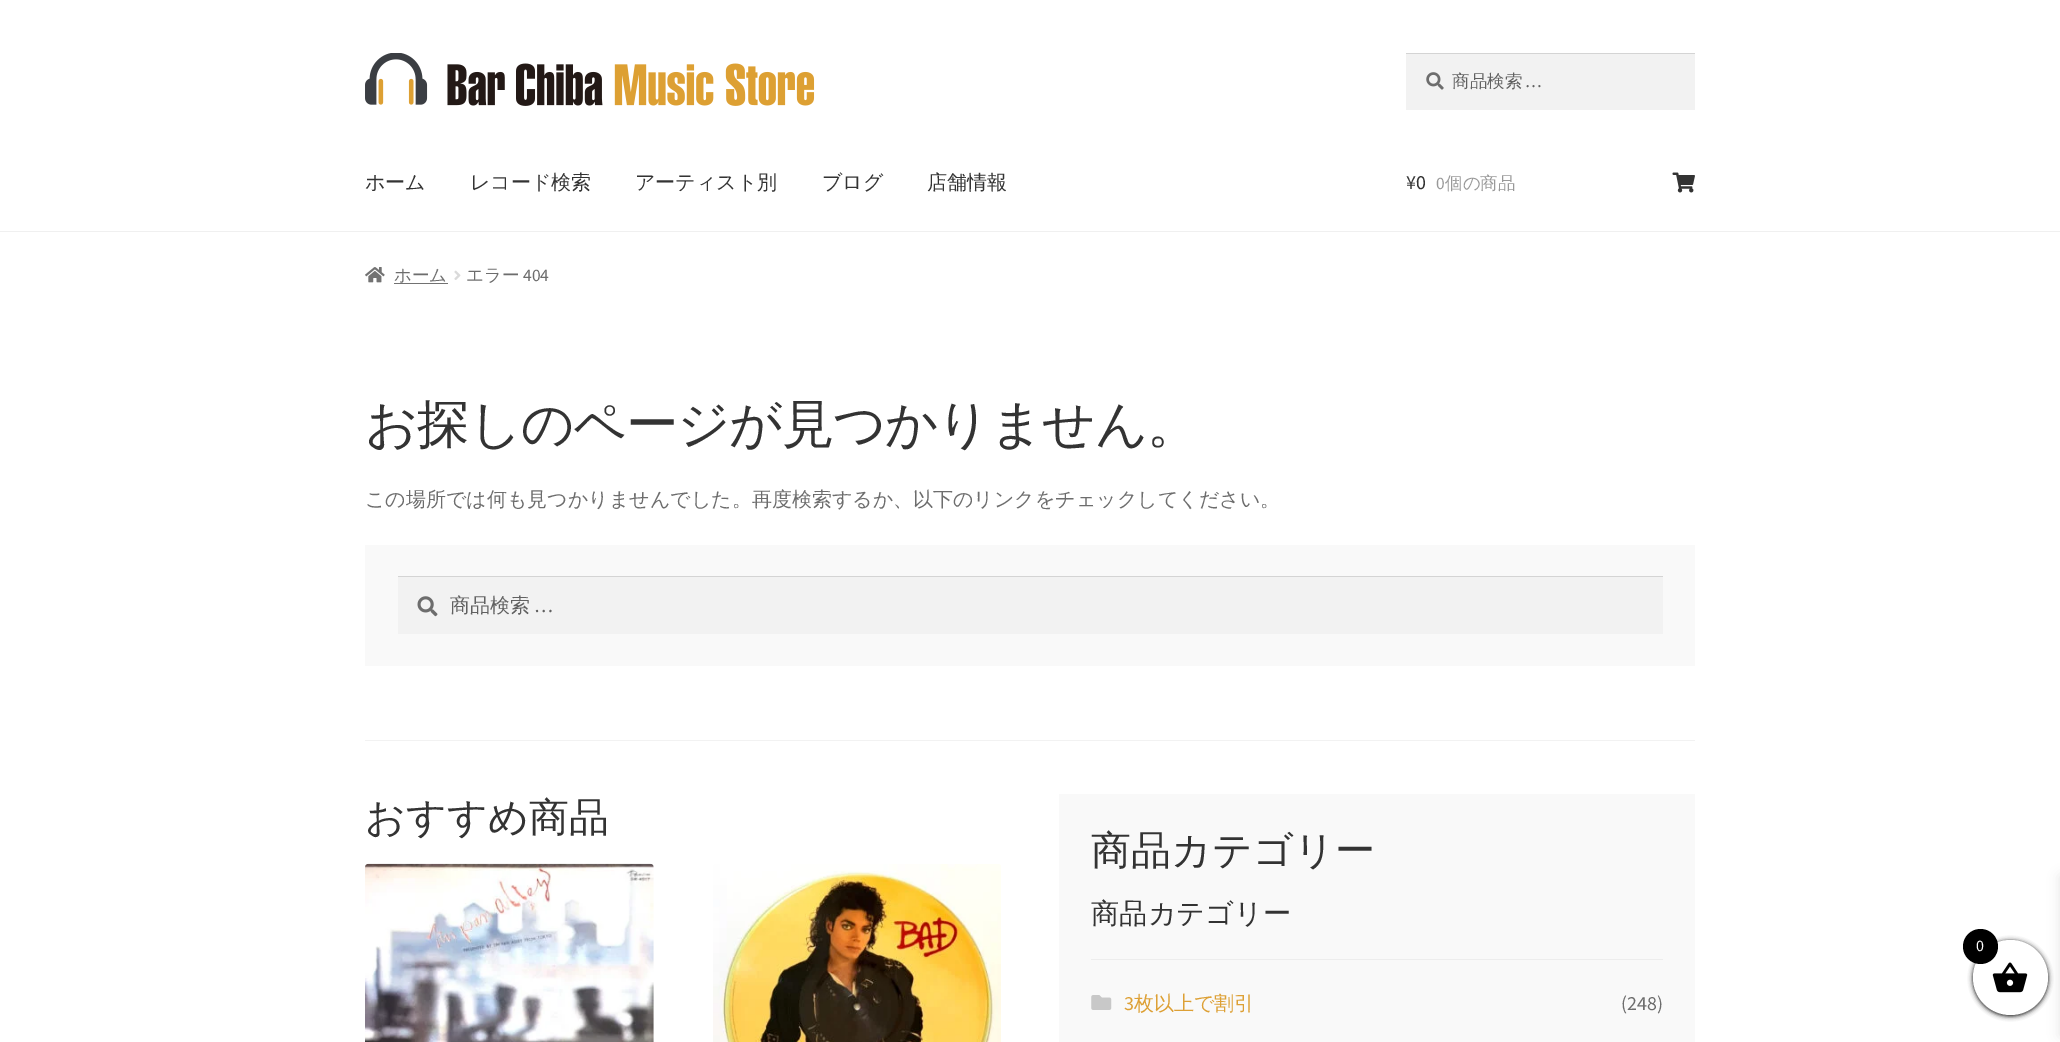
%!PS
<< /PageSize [2060 1042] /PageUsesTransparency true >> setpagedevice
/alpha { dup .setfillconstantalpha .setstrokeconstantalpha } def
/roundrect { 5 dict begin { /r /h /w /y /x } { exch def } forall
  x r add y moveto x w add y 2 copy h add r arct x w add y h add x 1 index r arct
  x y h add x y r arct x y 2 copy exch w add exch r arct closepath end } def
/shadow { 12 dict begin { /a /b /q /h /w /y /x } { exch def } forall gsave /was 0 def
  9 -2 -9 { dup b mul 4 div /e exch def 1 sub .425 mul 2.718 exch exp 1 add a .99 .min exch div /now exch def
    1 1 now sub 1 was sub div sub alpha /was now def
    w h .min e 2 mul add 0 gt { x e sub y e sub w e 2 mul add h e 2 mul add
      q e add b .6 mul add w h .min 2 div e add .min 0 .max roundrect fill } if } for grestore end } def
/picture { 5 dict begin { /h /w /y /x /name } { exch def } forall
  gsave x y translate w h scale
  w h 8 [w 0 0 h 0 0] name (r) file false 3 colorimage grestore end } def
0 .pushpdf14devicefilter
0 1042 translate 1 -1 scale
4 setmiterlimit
1 setgray
0 0 2060 1042 rectfill
0.941 setgray
0 231 2060 1 rectfill
(img1.rgb) 365 53 450 53 picture
0.949 setgray
1406 54 289 56 rectfill
(img2.rgb) 1426 72 18 18 picture
0.831 setgray
1406 53 289 1 rectfill
/WenQuanYiZenHei-Medium [17.5 0 0 -17.5 0 0] selectfont
0.38 setgray
1452 87 moveto (商品検索) show
/SourceSansPro-Regular [17.5 0 0 -17.5 0 0] selectfont
1525 87 moveto (…) show
/WenQuanYiZenHei-Medium [20 0 0 -20 0 0] selectfont
0.2 setgray
365 189 moveto (ホーム) show
470 189 moveto (レコード検索) show
635 189 moveto (アーティスト別) show
822 189 moveto (ブログ) show
927 189 moveto (店舗情報) show
/SourceSansPro-Regular [20 0 0 -20 0 0] selectfont
1406 189 moveto (¥0) show
/SourceSansPro-Regular [17.5 0 0 -17.5 0 0] selectfont
0.6 setgray
1436 189 moveto (0) show
/WenQuanYiZenHei-Medium [17.5 0 0 -17.5 0 0] selectfont
1445 189 moveto (個の商品) show
(img3.rgb) 1672 172 23 21 picture
(img4.rgb) 365 267 20 16 picture
0.427 setgray
394 281 moveto (ホーム) show
0.447 setgray
394 283 54 1 rectfill
(img5.rgb) 454 270 7 10 picture
0.427 setgray
466 281 moveto (エラー) show
/SourceSansPro-Regular [17.5 0 0 -17.5 0 0] selectfont
523 281 moveto (404) show
/WenQuanYiZenHei-Medium [52.4 0 0 -52.4 0 0] selectfont
0.2 setgray
365 442 moveto -1.25 0 (お探しのページが見つかりません。) ashow
/WenQuanYiZenHei-Medium [20 0 0 -20 0 0] selectfont
0.427 setgray
365 506 moveto (この場所では何も見つかりませんでした。再度検索するか、以下のリンクをチェックしてください。) show
0.976 setgray
365 545 1330 121 rectfill
0.949 setgray
398 577 1265 57 rectfill
(img6.rgb) 417 596 21 21 picture
0.831 setgray
398 576 1265 1 rectfill
0.38 setgray
450 612 moveto (商品検索) show
/SourceSansPro-Regular [20 0 0 -20 0 0] selectfont
534 612 moveto (…) show
0.949 setgray
365 740 1330 1 rectfill
/WenQuanYiZenHei-Medium [40 0 0 -40 0 0] selectfont
0.2 setgray
365 831 moveto (おすすめ商品) show
(img7.rgb) 365 863 289 179 picture
(img8.rgb) 713 864 288 178 picture
0.976 setgray
1059 794 636 248 rectfill
0.2 setgray
1091 864 moveto (商品カテゴリー) show
0.929 setgray
1091 959 572 1 rectfill
/WenQuanYiZenHei-Medium [28.25 0 0 -28.25 0 0] selectfont
0.2 setgray
1091 923 moveto (商品カテゴリー) show
(img9.rgb) 1091 995 21 15 picture
/SourceSansPro-Regular [20 0 0 -20 0 0] selectfont
0.867 0.627 0.208 setrgbcolor
1124 1010 moveto (3) show
/WenQuanYiZenHei-Medium [20 0 0 -20 0 0] selectfont
1134 1010 moveto (枚以上で割引) show
/SourceSansPro-Regular [20 0 0 -20 0 0] selectfont
0.427 setgray
1621 1010 moveto (\(248\)) show
0 setgray
1973 941 75 75 37.5 2.5 1 shadow
2060 876 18 160 0 6 0.1 shadow
1 setgray
newpath 2010.5 977.5 37.5 0 360 arc closepath fill
(img10.rgb) 1992 962 36 31 picture
0 setgray
newpath 1980.5 946.5 17.5 0 360 arc closepath fill
/SourceSansPro-Regular [16 0 0 -16 0 0] selectfont
1 setgray
1976 951 moveto (0) show
.poppdf14devicefilter showpage
